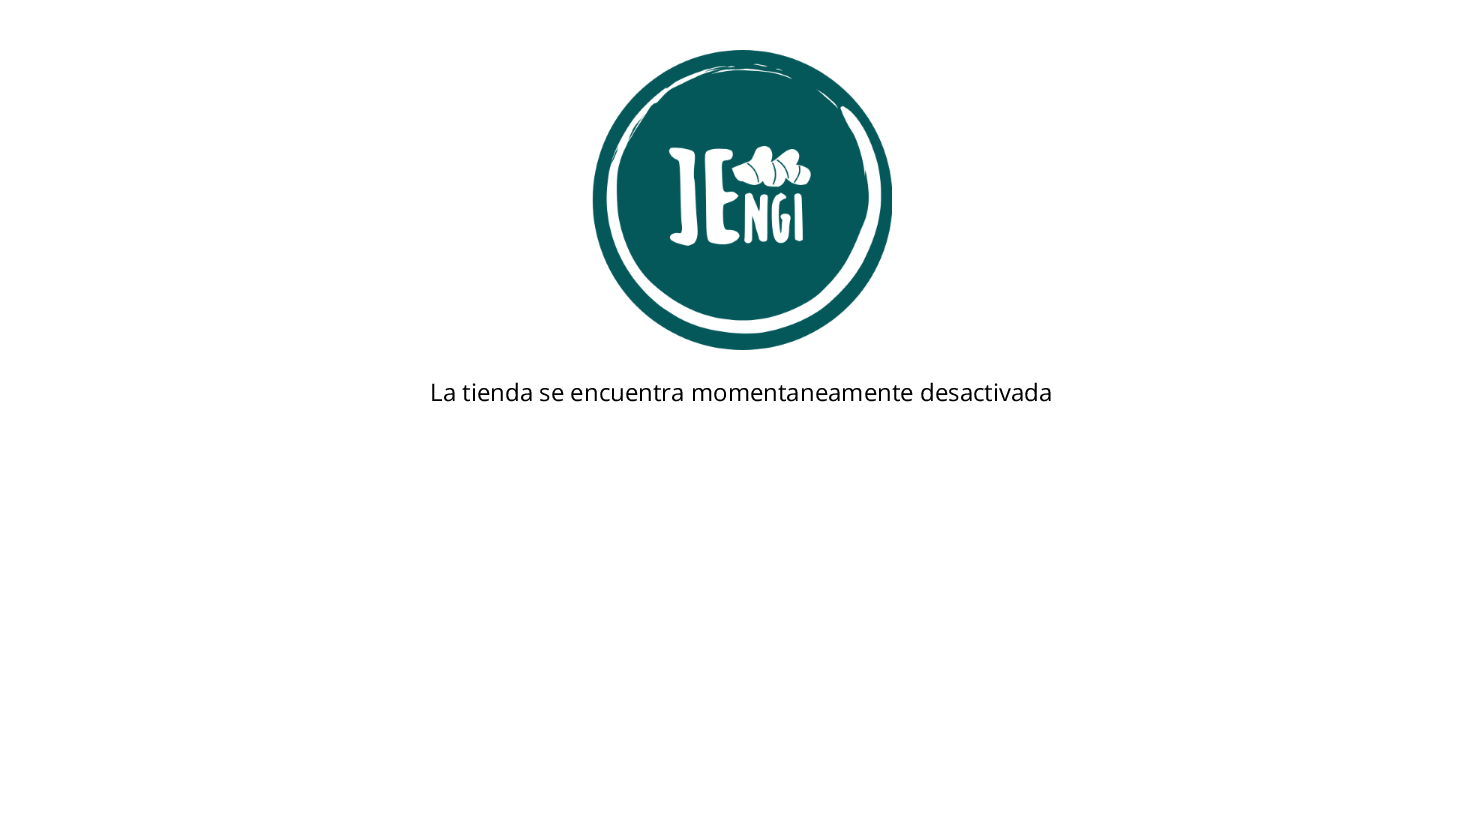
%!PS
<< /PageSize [1483 839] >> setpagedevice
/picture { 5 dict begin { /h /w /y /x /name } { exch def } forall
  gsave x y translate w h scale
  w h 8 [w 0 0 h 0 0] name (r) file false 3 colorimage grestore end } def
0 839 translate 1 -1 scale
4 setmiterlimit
1 setgray
0 0 1483 839 rectfill
(img1.rgb) 592 50 300 300 picture
/OpenSans-Regular [24 0 0 -24 0 0] selectfont
0 setgray
430 401 moveto (La tienda se encuentra momentaneamente desactivada) show
showpage
